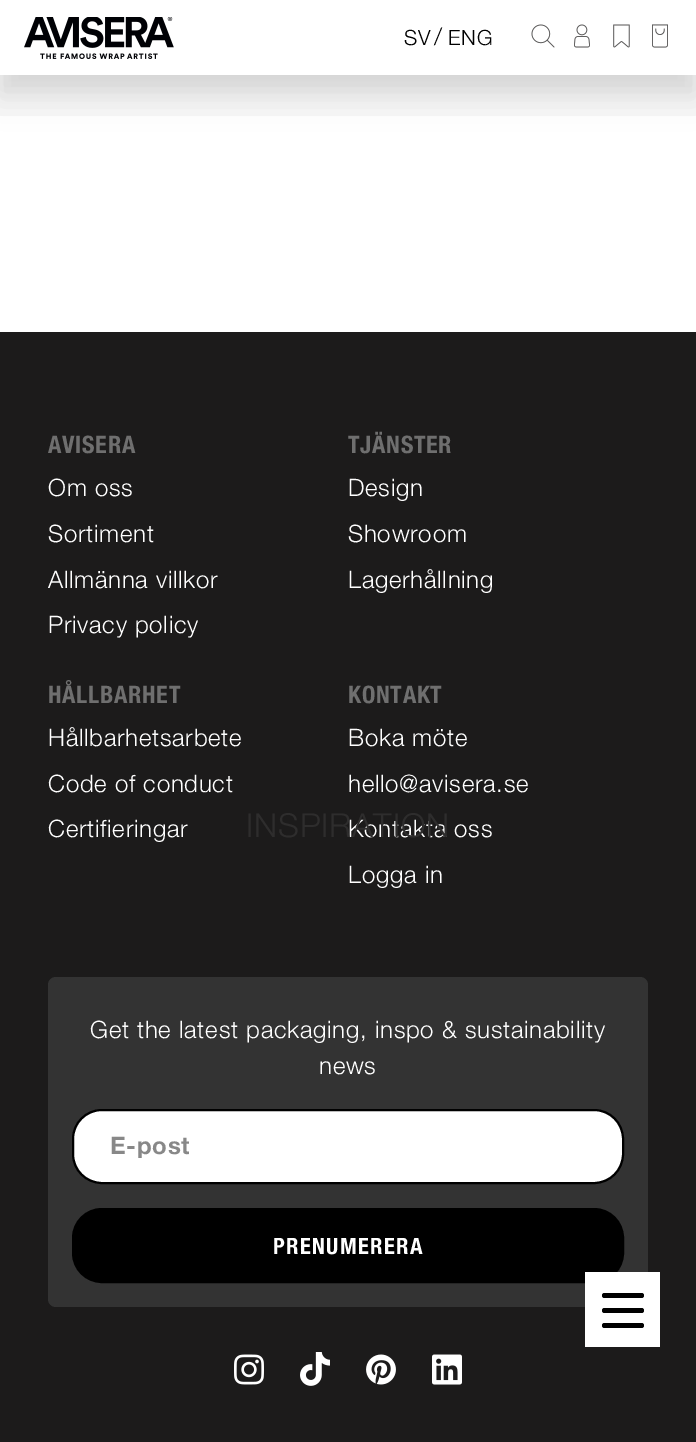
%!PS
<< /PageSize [696 1442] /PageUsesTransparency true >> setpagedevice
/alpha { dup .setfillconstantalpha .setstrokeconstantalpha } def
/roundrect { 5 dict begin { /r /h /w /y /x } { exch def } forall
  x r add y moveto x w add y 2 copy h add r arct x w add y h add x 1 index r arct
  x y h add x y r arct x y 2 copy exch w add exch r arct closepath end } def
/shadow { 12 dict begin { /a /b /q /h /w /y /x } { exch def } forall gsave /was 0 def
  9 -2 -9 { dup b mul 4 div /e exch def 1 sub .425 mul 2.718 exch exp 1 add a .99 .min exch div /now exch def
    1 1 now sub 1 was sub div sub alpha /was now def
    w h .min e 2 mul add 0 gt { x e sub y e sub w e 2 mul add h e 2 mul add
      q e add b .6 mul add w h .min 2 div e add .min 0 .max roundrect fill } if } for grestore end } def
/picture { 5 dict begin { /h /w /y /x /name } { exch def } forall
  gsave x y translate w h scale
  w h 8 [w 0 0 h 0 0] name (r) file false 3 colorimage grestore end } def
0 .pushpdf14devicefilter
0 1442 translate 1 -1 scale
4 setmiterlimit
0.11 0.106 0.106 setrgbcolor
0 0 696 1442 rectfill
1 setgray
0 116 696 216 rectfill
0.973 setgray
0 75 696 41 rectfill
0 setgray
0 23 696 75 0 15 0.08 shadow
0 15 696 75 0 11 0.05 shadow
1 setgray
0 0 696 75 rectfill
(img1.rgb) 24 17 150 42 picture
/HelveticaNeue-Light [21 0 0 -21 0 0] selectfont
0 setgray
404 45 moveto 0.75 0 (SV) ashow
/HelveticaNeue-Light [24 0 0 -24 0 0] selectfont
434 45 moveto 0.75 0 (/) ashow
/HelveticaNeue-Light [21 0 0 -21 0 0] selectfont
448 45 moveto 0.75 0 (ENG) ashow
(img2.rgb) 531 24 24 24 picture
(img3.rgb) 574 24 16 24 picture
(img4.rgb) 613 24 17 24 picture
(img5.rgb) 652 24 16 24 picture
/HelveticaNeue-Bold [24 0 0 -24 0 0] selectfont
0.435 setgray
48 453 moveto 0.75 0 (AVISERA) ashow
/HelveticaNeue-Light [24 0 0 -24 0 0] selectfont
1 setgray
48 496 moveto 0.75 0 (Om oss) ashow
48 542 moveto 0.75 0 (Sortiment) ashow
48 588 moveto 0.75 0 (Allmänna villkor) ashow
48 633 moveto 0.75 0 (Privacy policy) ashow
/HelveticaNeue-Bold [24 0 0 -24 0 0] selectfont
0.435 setgray
348 453 moveto 0.75 0 (TJÄNSTER) ashow
/HelveticaNeue-Light [24 0 0 -24 0 0] selectfont
1 setgray
348 496 moveto 0.75 0 (Design) ashow
348 542 moveto 0.75 0 (Showroom) ashow
348 588 moveto 0.75 0 (Lagerhållning) ashow
/HelveticaNeue-Bold [24 0 0 -24 0 0] selectfont
0.435 setgray
48 703 moveto 0.75 0 (HÅLLBARHET) ashow
/HelveticaNeue-Light [24 0 0 -24 0 0] selectfont
1 setgray
48 746 moveto 0.75 0 (Hållbarhetsarbete) ashow
48 792 moveto 0.75 0 (Code of conduct) ashow
48 837 moveto 0.75 0 (Certifieringar) ashow
/HelveticaNeue-Bold [24 0 0 -24 0 0] selectfont
0.435 setgray
348 703 moveto 0.75 0 (KONTAKT) ashow
/HelveticaNeue-Light [24 0 0 -24 0 0] selectfont
1 setgray
348 746 moveto 0.75 0 (Boka möte) ashow
348 792 moveto 0.75 0 (hello@avisera.se) ashow
348 837 moveto 0.75 0 (Kontakta oss) ashow
348 883 moveto 0.75 0 (Logga in) ashow
0.2 setgray
48 977 600 330 8 roundrect fill
1 setgray
90 1038 moveto 0.75 0 (Get the latest packaging, inspo & sustainability) ashow
319 1074 moveto 0.75 0 (news) ashow
73 1110 550 73 29 roundrect gsave fill grestore
0 setgray
2 setlinewidth
stroke
gsave
110 1130 477 28 rectclip
/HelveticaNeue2-Bold [24 0 0 -24 0 0] selectfont
0.533 setgray
110 1154 moveto 0.75 0 (E-post) ashow
grestore
73.5 1209.5 549 72 28.5 roundrect gsave fill grestore
3 setlinewidth
stroke
/HelveticaNeue-Bold [22.5 0 0 -22.5 0 0] selectfont
1 setgray
273 1254 moveto 1.4 0 (PRENUMERERA) ashow
(img6.rgb) 234 1354 30 31 picture
(img7.rgb) 300 1352 30 34 picture
(img8.rgb) 366 1354 30 31 picture
(img9.rgb) 432 1354 30 31 picture
585 1272 75 75 rectfill
/HelveticaNeue-Light [33 0 0 -33 0 0] selectfont
0.18 0.176 0.176 setrgbcolor
246 837 moveto 0.75 0 (INSPIRATION) ashow
0 setgray
602 1308 42 5 2.5 roundrect fill
602 1293 42 5 2.5 roundrect fill
602 1323 42 5 2.5 roundrect fill
.poppdf14devicefilter showpage
